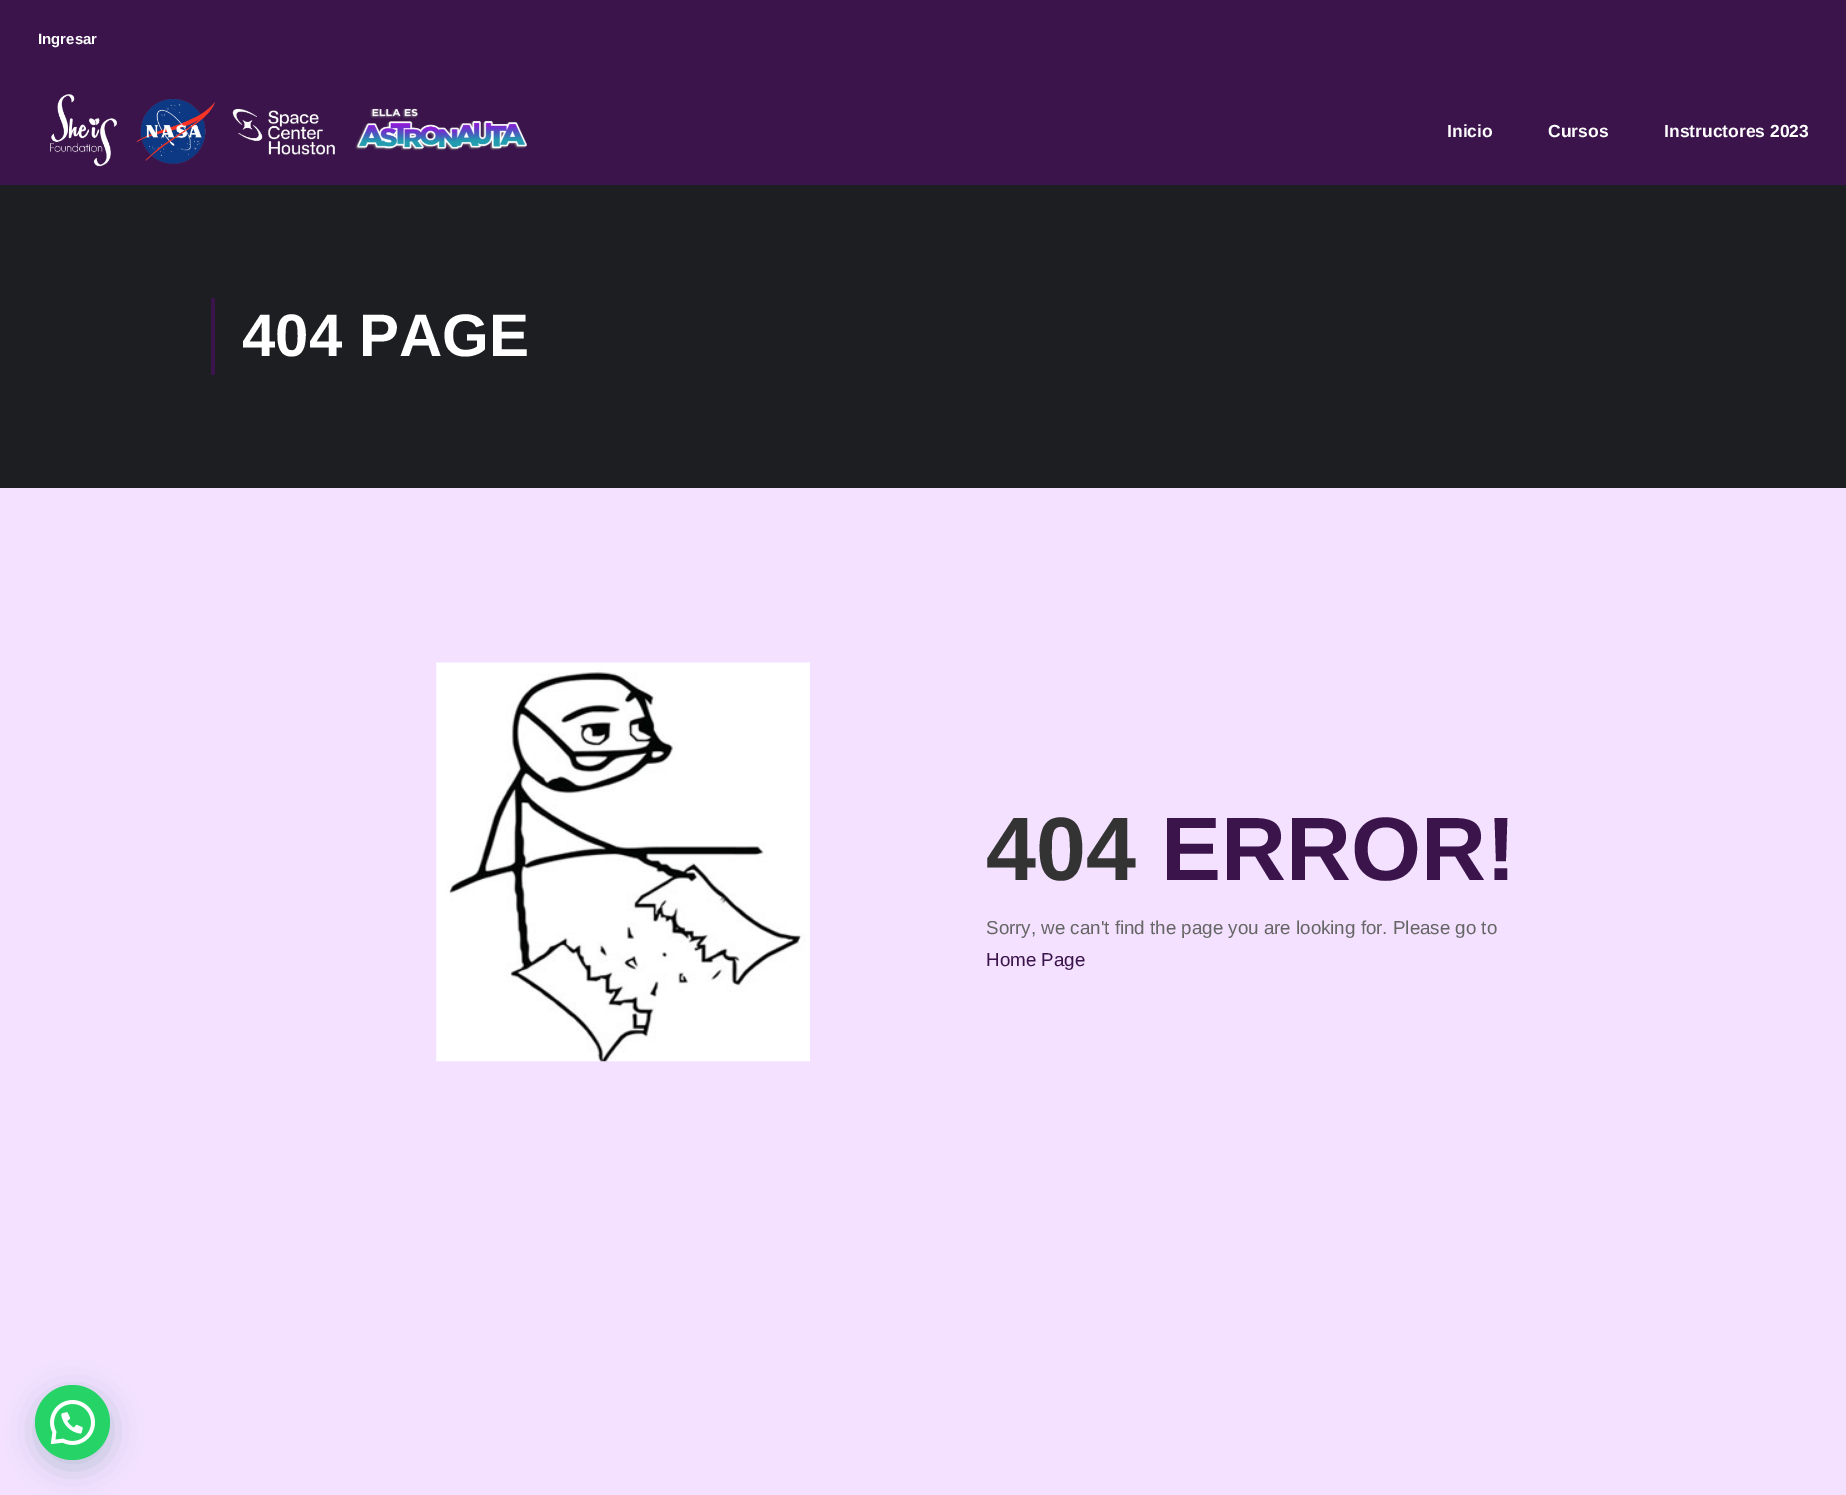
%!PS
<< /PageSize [1846 1495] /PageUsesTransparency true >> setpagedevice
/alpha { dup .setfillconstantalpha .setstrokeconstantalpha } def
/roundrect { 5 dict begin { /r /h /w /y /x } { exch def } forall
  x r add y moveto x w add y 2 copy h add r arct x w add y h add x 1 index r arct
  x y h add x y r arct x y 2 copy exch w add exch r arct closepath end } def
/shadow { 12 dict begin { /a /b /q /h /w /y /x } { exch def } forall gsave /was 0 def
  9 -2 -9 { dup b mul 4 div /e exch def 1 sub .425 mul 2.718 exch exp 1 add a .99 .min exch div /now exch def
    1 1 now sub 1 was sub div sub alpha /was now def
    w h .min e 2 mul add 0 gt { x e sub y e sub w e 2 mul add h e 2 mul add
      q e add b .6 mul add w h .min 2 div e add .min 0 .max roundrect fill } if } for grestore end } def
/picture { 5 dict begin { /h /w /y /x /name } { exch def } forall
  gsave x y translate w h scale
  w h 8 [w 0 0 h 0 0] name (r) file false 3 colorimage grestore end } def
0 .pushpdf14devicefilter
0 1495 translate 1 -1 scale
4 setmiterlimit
0.953 0.882 1 setrgbcolor
0 0 1846 1495 rectfill
0.231 0.078 0.294 setrgbcolor
0 0 1846 185 rectfill
/LiberationSans-Bold [15 0 0 -15 0 0] selectfont
1 setgray
38 44 moveto (Ingresar) show
(img1.rgb) 50 94 477 73 picture
/LiberationSans-Bold [17.5 0 0 -17.5 0 0] selectfont
1447 137 moveto (Inicio) show
1548 137 moveto (Cursos) show
1664 137 moveto (Instructores 2023) show
0.11 0.118 0.133 setrgbcolor
0 185 1846 303 rectfill
0.231 0.078 0.294 setrgbcolor
211 298 4 77 rectfill
/LiberationSans-Bold [60 0 0 -60 0 0] selectfont
1 setgray
242 356 moveto (404 PAGE) show
(img2.rgb) 436 662 374 400 picture
/LiberationSans-Bold [90 0 0 -90 0 0] selectfont
0.2 setgray
986 880 moveto (404) show
0.231 0.078 0.294 setrgbcolor
1161 880 moveto (ERROR!) show
/LiberationSans-Regular [18.75 0 0 -18.75 0 0] selectfont
0.4 setgray
986 934 moveto (Sorry, we can't find the page you are looking for. Please go to) show
0.231 0.078 0.294 setrgbcolor
986 966 moveto (Home Page) show
0.027 0.369 0.329 setrgbcolor
36 1393 75 75 37.5 15 0.24 shadow
0.145 0.827 0.4 setrgbcolor
newpath 72.5 1422.5 37.5 0 360 arc closepath fill
(img3.rgb) 50 1400 45 45 picture
.poppdf14devicefilter showpage
